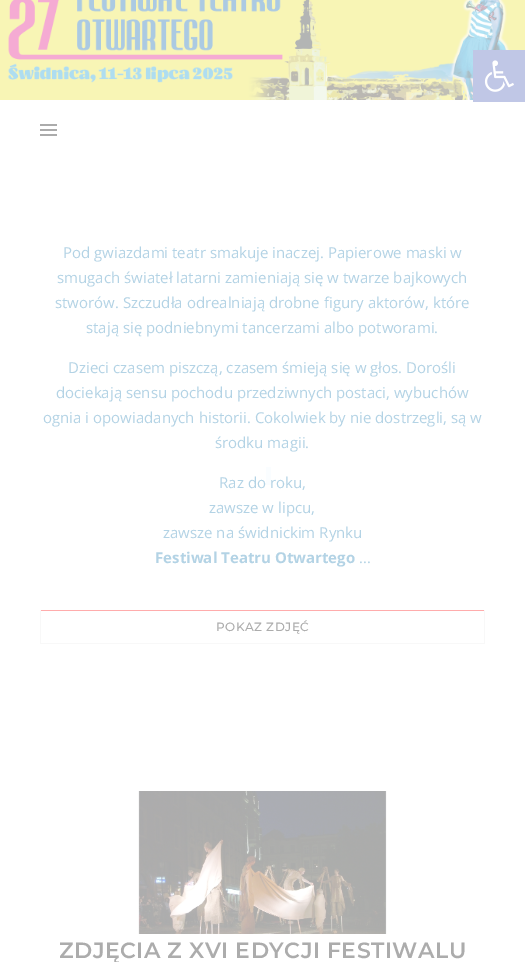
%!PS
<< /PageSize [525 962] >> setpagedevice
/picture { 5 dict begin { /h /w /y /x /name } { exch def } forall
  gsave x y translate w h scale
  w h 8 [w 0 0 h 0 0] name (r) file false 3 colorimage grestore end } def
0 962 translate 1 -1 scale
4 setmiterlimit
1 setgray
0 0 525 962 rectfill
(img2.rgb) 0 0 525 100 picture
0.753 0.78 0.902 setrgbcolor
473 50 52 52 rectfill
(img1.rgb) 484 60 30 32 picture
0.671 setgray
40 124 17 2 rectfill
40 129 17 2 rectfill
40 134 17 2 rectfill
/OpenSans-Regular [15 0 0 -15 0 0] selectfont
0.702 0.827 0.898 setrgbcolor
63 258 moveto (Pod gwiazdami teatr smakuje inaczej. Papierowe maski w) show
57 283 moveto (smugach świateł latarni zamieniają się w twarze bajkowych) show
55 308 moveto (stworów. Szczudła odrealniają drobne figury aktorów, które) show
86 333 moveto (stają się podniebnymi tancerzami albo potworami.) show
68 373 moveto (Dzieci czasem piszczą, czasem śmieją się w głos. Dorośli) show
56 398 moveto (dociekają sensu pochodu przedziwnych postaci, wybuchów) show
43 423 moveto (ognia i opowiadanych historii. Cokolwiek by nie dostrzegli, są w) show
215 448 moveto (środku magii.) show
219 488 moveto (Raz do roku,) show
209 513 moveto (zawsze w lipcu,) show
163 538 moveto (zawsze na świdnickim Rynku) show
/OpenSans-Bold [15 0 0 -15 0 0] selectfont
155 563 moveto (Festiwal Teatru Otwartego) show
/OpenSans-Regular [15 0 0 -15 0 0] selectfont
359 563 moveto (...) show
1 0.675 0.675 setrgbcolor
40 610 445 1 rectfill
0.973 setgray
484 610 1 34 rectfill
40 643 445 1 rectfill
40 610 1 34 rectfill
/Montserrat-Medium [12 0 0 -12 0 0] selectfont
0.675 setgray
216 631 moveto 0.5 0 (POKAZ ZDJĘĆ) ashow
(img3.rgb) 138 791 249 143 picture
/Montserrat-SemiBold [22 0 0 -22 0 0] selectfont
59 958 moveto 0.5 0 (ZDJĘCIA Z XVI EDYCJI FESTIWALU) ashow
0.98 0.992 1 setrgbcolor
266 467 5 18 rectfill
showpage
